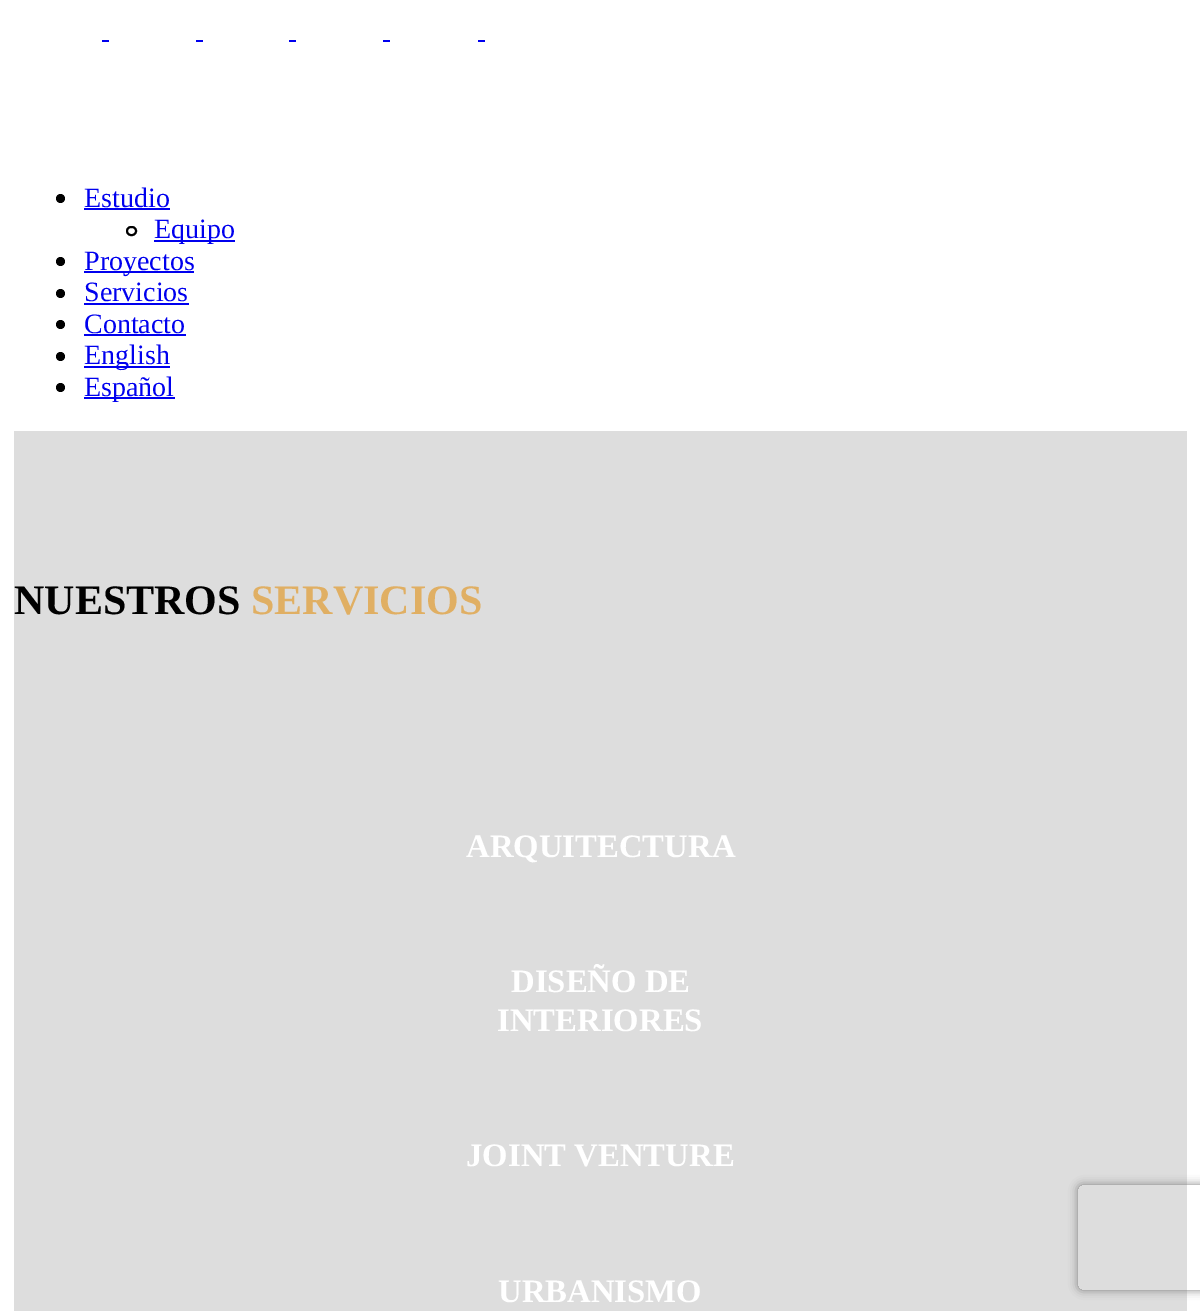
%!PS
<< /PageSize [1200 1313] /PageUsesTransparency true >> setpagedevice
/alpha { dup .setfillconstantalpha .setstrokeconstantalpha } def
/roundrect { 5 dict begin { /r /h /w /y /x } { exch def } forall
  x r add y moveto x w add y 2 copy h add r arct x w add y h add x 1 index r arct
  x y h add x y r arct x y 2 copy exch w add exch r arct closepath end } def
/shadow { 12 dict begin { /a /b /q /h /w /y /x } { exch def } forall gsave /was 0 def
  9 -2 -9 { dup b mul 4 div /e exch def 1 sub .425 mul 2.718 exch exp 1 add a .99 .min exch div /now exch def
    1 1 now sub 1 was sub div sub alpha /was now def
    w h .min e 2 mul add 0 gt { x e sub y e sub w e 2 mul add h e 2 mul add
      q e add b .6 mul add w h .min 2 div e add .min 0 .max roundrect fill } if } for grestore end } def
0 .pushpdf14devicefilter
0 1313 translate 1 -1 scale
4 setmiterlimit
1 setgray
0 0 1200 1313 rectfill
0 0 0.933 setrgbcolor
102 40 7 2 rectfill
196 40 7 2 rectfill
289 40 7 2 rectfill
383 40 7 2 rectfill
478 40 7 2 rectfill
0 setgray
newpath 60.5 198.5 4.5 0 360 arc closepath fill
/LiberationSerif-Regular [28 0 0 -28 0 0] selectfont
0 0 0.933 setrgbcolor
84 207 moveto (Estudio) show
84 208 86 2 rectfill
0 setgray
2 setlinewidth
127 227 9 8 4 roundrect stroke
0 0 0.933 setrgbcolor
154 240 81 2 rectfill
154 238 moveto (Equipo) show
0 setgray
newpath 60.5 261.5 4.5 0 360 arc closepath fill
0 0 0.933 setrgbcolor
84 271 110 2 rectfill
84 270 moveto (Proyectos) show
0 setgray
newpath 60.5 293.5 4.5 0 360 arc closepath fill
0 0 0.933 setrgbcolor
84 301 moveto (Servicios) show
84 303 105 2 rectfill
0 setgray
newpath 60.5 324.5 4.5 0 360 arc closepath fill
0 0 0.933 setrgbcolor
84 333 moveto (Contacto) show
84 334 102 2 rectfill
0 setgray
newpath 60.5 356.5 4.5 0 360 arc closepath fill
0 0 0.933 setrgbcolor
84 366 86 2 rectfill
84 364 moveto (English) show
0 setgray
newpath 60.5 387.5 4.5 0 360 arc closepath fill
0 0 0.933 setrgbcolor
84 397 91 2 rectfill
84 396 moveto (Español) show
0.867 setgray
14 431 1173 880 rectfill
/LiberationSerif-Bold [42 0 0 -42 0 0] selectfont
0 setgray
14 614 moveto (NUESTROS) show
0.878 0.686 0.388 setrgbcolor
251 614 moveto (SERVICIOS) show
/LiberationSerif-Bold [32.75 0 0 -32.75 0 0] selectfont
1 setgray
466 857 moveto (ARQUITECTURA) show
511 992 moveto (DISEÑO DE) show
497 1031 moveto (INTERIORES) show
466 1166 moveto (JOINT VENTURE) show
498 1302 moveto (URBANISMO) show
gsave
newpath 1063 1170 moveto 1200 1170 lineto 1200 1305 lineto 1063 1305 lineto closepath 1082 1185 moveto 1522 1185 lineto 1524 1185 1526 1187 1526 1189 curveto 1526 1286 lineto 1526 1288 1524 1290 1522 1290 curveto 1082 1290 lineto 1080 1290 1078 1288 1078 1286 curveto 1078 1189 lineto 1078 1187 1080 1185 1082 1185 curveto closepath eoclip newpath
0.502 setgray
1078 1185 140 105 4 4.5 1 shadow
grestore
.poppdf14devicefilter showpage
